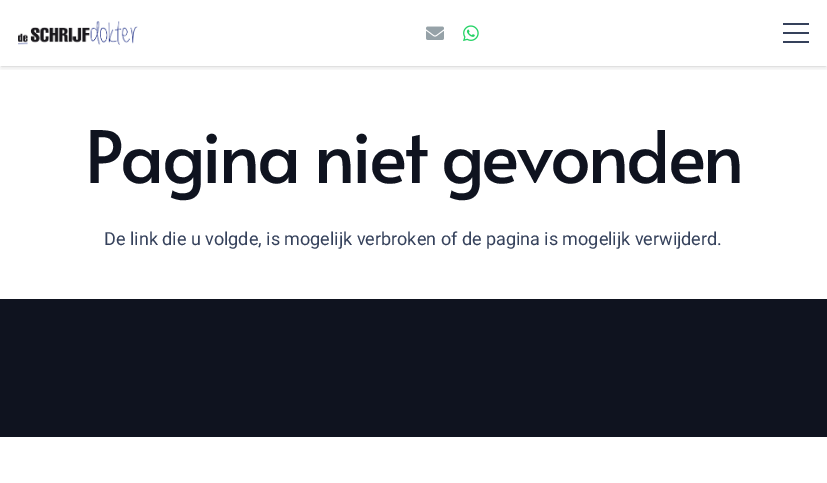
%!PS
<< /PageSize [827 483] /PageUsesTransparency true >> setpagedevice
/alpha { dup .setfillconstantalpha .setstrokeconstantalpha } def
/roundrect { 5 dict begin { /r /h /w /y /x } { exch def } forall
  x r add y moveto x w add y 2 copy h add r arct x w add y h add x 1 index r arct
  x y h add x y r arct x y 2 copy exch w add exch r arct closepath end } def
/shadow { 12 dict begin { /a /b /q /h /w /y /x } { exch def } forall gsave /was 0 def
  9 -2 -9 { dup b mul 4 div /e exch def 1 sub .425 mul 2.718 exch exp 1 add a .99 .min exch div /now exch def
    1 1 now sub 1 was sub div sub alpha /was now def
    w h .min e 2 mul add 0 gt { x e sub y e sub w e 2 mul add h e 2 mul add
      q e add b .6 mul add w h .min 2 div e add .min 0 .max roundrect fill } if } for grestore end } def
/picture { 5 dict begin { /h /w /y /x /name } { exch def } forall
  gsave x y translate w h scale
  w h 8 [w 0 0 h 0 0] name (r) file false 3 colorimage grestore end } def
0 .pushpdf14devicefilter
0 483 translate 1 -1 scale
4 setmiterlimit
1 setgray
0 0 827 483 rectfill
gsave
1 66 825 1 rectclip
0 setgray
1 3 825 64 0 0.5 0.05 shadow
grestore
gsave
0 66 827 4 rectclip
0 setgray
1 4 825 64 0 2.5 0.1 shadow
grestore
(img1.rgb) 18 21 120 24 picture
(img2.rgb) 426 26 18 14 picture
(img3.rgb) 463 25 16 17 picture
0.208 0.255 0.357 setrgbcolor
783 32 26 2 rectfill
783 23 26 2 rectfill
783 41 26 2 rectfill
/Alata-Regular [72 0 0 -72 0 0] selectfont
0.059 0.075 0.122 setrgbcolor
85 183 moveto -2.9 0 (Pagina niet gevonden) ashow
/Roboto-Regular [18 0 0 -18 0 0] selectfont
0.208 0.255 0.357 setrgbcolor
104 245 moveto (De link die u volgde, is mogelijk verbroken of de pagina is mogelijk verwijderd.) show
0.059 0.075 0.122 setrgbcolor
0 299 827 138 rectfill
.poppdf14devicefilter showpage
